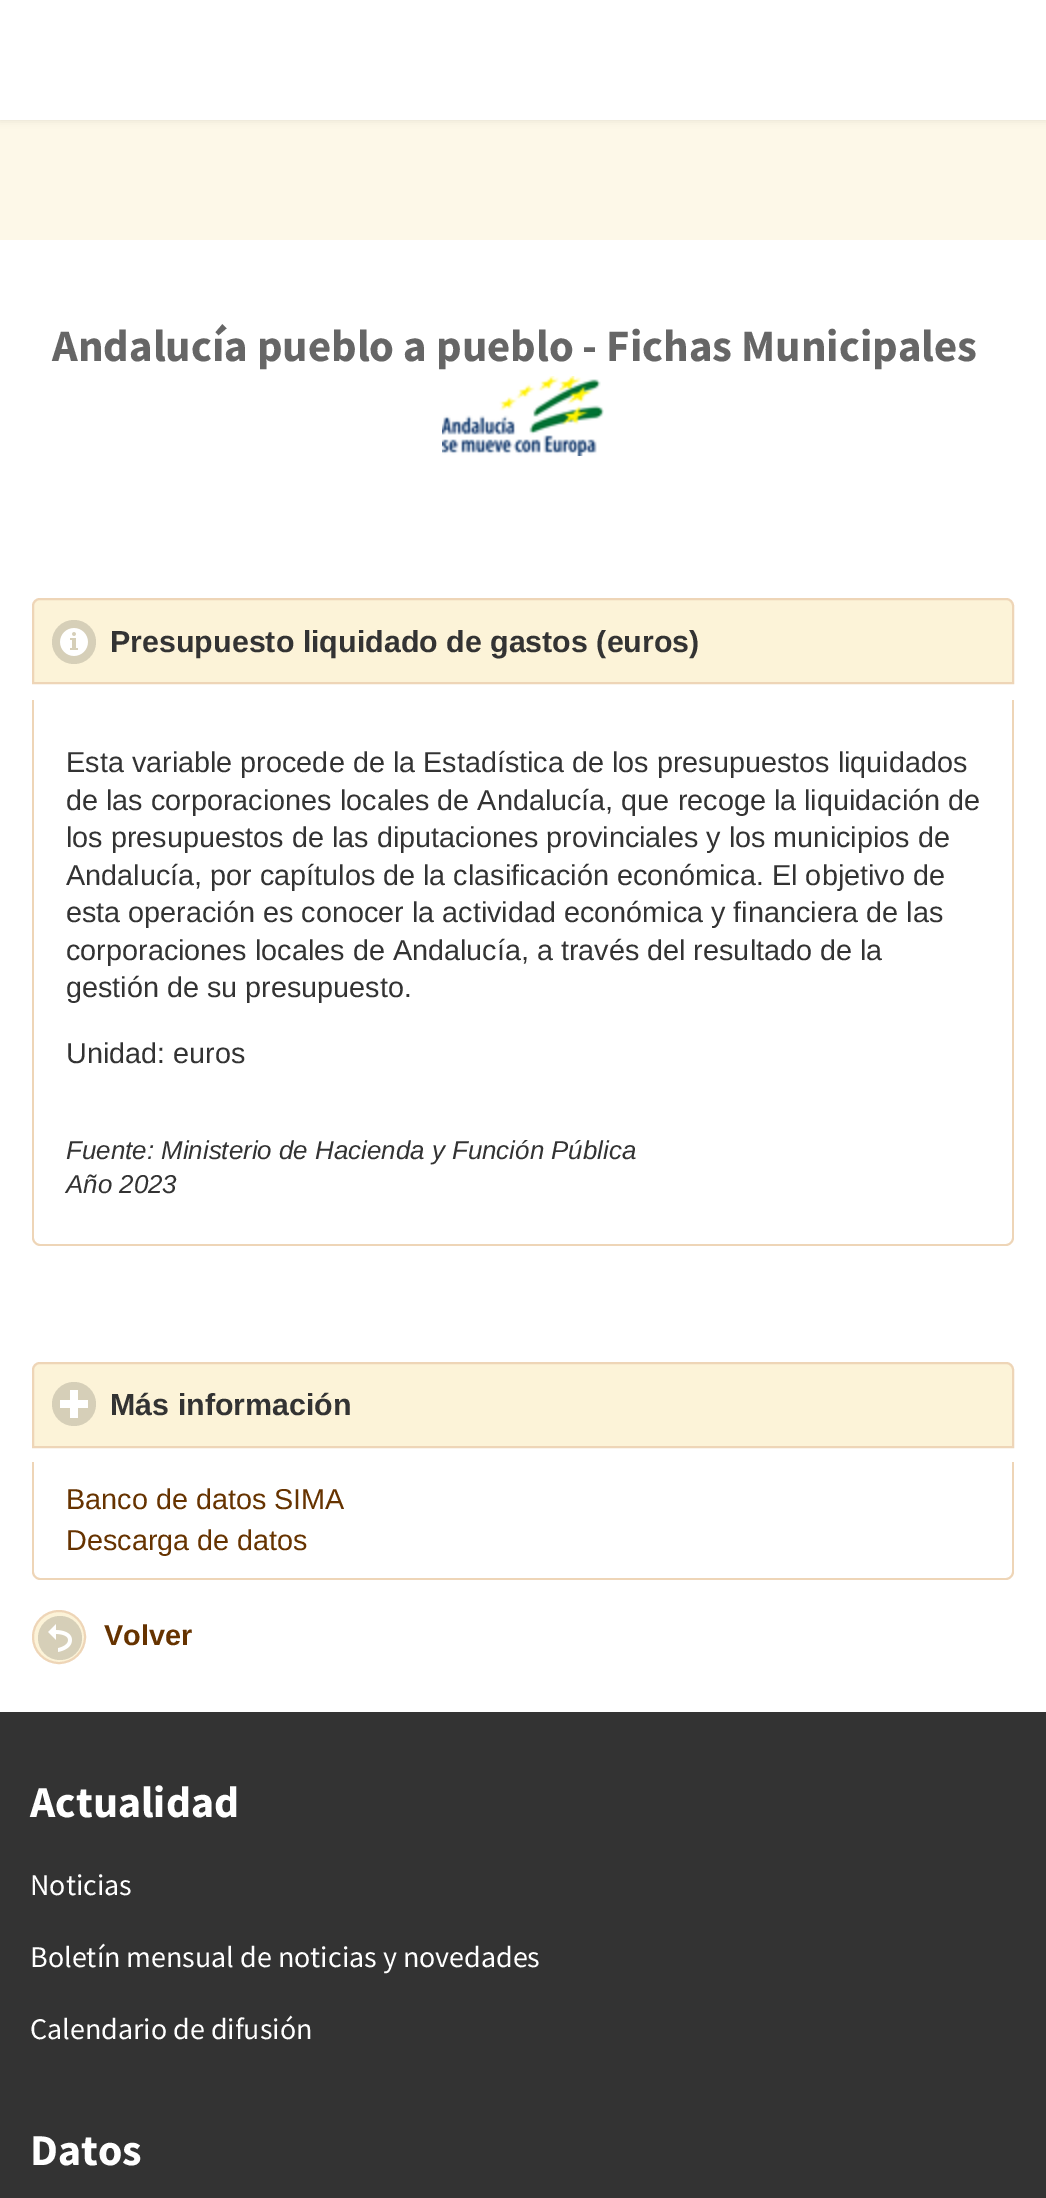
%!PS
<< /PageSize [1046 2198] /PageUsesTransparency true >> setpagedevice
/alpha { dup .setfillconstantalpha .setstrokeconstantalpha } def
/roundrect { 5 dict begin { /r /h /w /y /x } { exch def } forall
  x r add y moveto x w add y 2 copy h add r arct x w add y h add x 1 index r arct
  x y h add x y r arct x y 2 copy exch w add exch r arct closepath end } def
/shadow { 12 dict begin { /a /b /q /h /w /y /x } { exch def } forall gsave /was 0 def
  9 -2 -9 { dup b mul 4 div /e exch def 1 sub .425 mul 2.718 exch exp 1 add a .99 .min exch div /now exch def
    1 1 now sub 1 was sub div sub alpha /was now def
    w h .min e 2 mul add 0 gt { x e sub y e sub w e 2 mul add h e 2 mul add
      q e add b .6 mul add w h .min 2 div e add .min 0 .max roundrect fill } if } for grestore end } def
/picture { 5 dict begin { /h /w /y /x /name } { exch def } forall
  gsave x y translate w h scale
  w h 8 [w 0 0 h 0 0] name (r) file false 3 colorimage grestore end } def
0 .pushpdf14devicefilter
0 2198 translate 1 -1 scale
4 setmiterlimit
0.992 0.973 0.91 setrgbcolor
0 0 1046 2198 rectfill
0 setgray
0 0 1046 120 0 4 0.1 shadow
1 setgray
0 0 1046 120 rectfill
0 240 1046 1472 rectfill
/SourceSansPro-Bold [44.8 0 0 -44.8 0 0] selectfont
0.4 setgray
52 361 moveto (Andalucía pueblo a pueblo - Fichas Municipales) show
(img1.rgb) 442 376 162 80 picture
0.988 0.953 0.847 setrgbcolor
newpath 40 599 moveto 1006 599 lineto 1010 599 1013 602 1013 606 curveto 1013 683 lineto 33 683 lineto 33 606 lineto 33 602 36 599 40 599 curveto closepath gsave fill grestore
0.933 0.835 0.718 setrgbcolor
2 setlinewidth
stroke
0.839 0.812 0.722 setrgbcolor
newpath 74 642 22 0 360 arc closepath fill
(img2.rgb) 60 628 28 28 picture
/LiberationSans-Bold [30.4 0 0 -30.4 0 0] selectfont
0.2 setgray
110 652 moveto (Presupuesto liquidado de gastos \(euros\)) show
0.933 0.835 0.718 setrgbcolor
newpath 32 700 moveto 1014 700 lineto 1014 1238 lineto 1014 1242 1010 1246 1006 1246 curveto 40 1246 lineto 36 1246 32 1242 32 1238 curveto closepath 34 700 moveto 1012 700 lineto 1012 1238 lineto 1012 1241 1009 1244 1006 1244 curveto 40 1244 lineto 37 1244 34 1241 34 1238 curveto closepath eofill
/LiberationSans-Regular [28.8 0 0 -28.8 0 0] selectfont
0.2 setgray
66 772 moveto (Esta variable procede de la Estadística de los presupuestos liquidados) show
66 810 moveto (de las corporaciones locales de Andalucía, que recoge la liquidación de) show
66 847 moveto (los presupuestos de las diputaciones provinciales y los municipios de) show
66 885 moveto (Andalucía, por capítulos de la clasificación económica. El objetivo de) show
66 922 moveto (esta operación es conocer la actividad económica y financiera de las) show
66 960 moveto (corporaciones locales de Andalucía, a través del resultado de la) show
66 997 moveto (gestión de su presupuesto.) show
66 1063 moveto (Unidad: euros) show
/LiberationSans-Italic [25.9 0 0 -25.9 0 0] selectfont
66 1159 moveto (Fuente: Ministerio de Hacienda y Función Pública) show
66 1193 moveto (Año 2023) show
0.988 0.953 0.847 setrgbcolor
newpath 40 1363 moveto 1006 1363 lineto 1010 1363 1013 1366 1013 1370 curveto 1013 1447 lineto 33 1447 lineto 33 1370 lineto 33 1366 36 1363 40 1363 curveto closepath gsave fill grestore
0.933 0.835 0.718 setrgbcolor
stroke
0.839 0.812 0.722 setrgbcolor
newpath 74 1404 22 0 360 arc closepath fill
(img3.rgb) 60 1390 28 28 picture
/LiberationSans-Bold [30.4 0 0 -30.4 0 0] selectfont
0.2 setgray
110 1415 moveto (Más información) show
0.933 0.835 0.718 setrgbcolor
newpath 32 1462 moveto 1014 1462 lineto 1014 1572 lineto 1014 1576 1010 1580 1006 1580 curveto 40 1580 lineto 36 1580 32 1576 32 1572 curveto closepath 34 1462 moveto 1012 1462 lineto 1012 1572 lineto 1012 1575 1009 1578 1006 1578 curveto 40 1578 lineto 37 1578 34 1575 34 1572 curveto closepath eofill
/LiberationSans-Regular [28.8 0 0 -28.8 0 0] selectfont
0.4 0.2 0 setrgbcolor
66 1509 moveto (Banco de datos SIMA) show
66 1550 moveto (Descarga de datos) show
0.988 0.953 0.847 setrgbcolor
newpath 59 1637 26 0 360 arc closepath gsave fill grestore
0.933 0.835 0.718 setrgbcolor
stroke
0.839 0.812 0.722 setrgbcolor
newpath 60 1638 22 0 360 arc closepath fill
(img4.rgb) 48 1624 24 28 picture
/LiberationSans-Bold [28.8 0 0 -28.8 0 0] selectfont
0.4 0.2 0 setrgbcolor
104 1645 moveto (Volver) show
0.2 setgray
0 1712 1046 486 rectfill
/SourceSansPro-Bold [44 0 0 -44 0 0] selectfont
1 setgray
30 1817 moveto (Actualidad) show
/SourceSansPro-Regular [30 0 0 -30 0 0] selectfont
30 1895 moveto (Noticias) show
30 1967 moveto (Boletín mensual de noticias y novedades) show
30 2039 moveto (Calendario de difusión) show
/SourceSansPro-Bold [44 0 0 -44 0 0] selectfont
30 2165 moveto (Datos) show
.poppdf14devicefilter showpage
